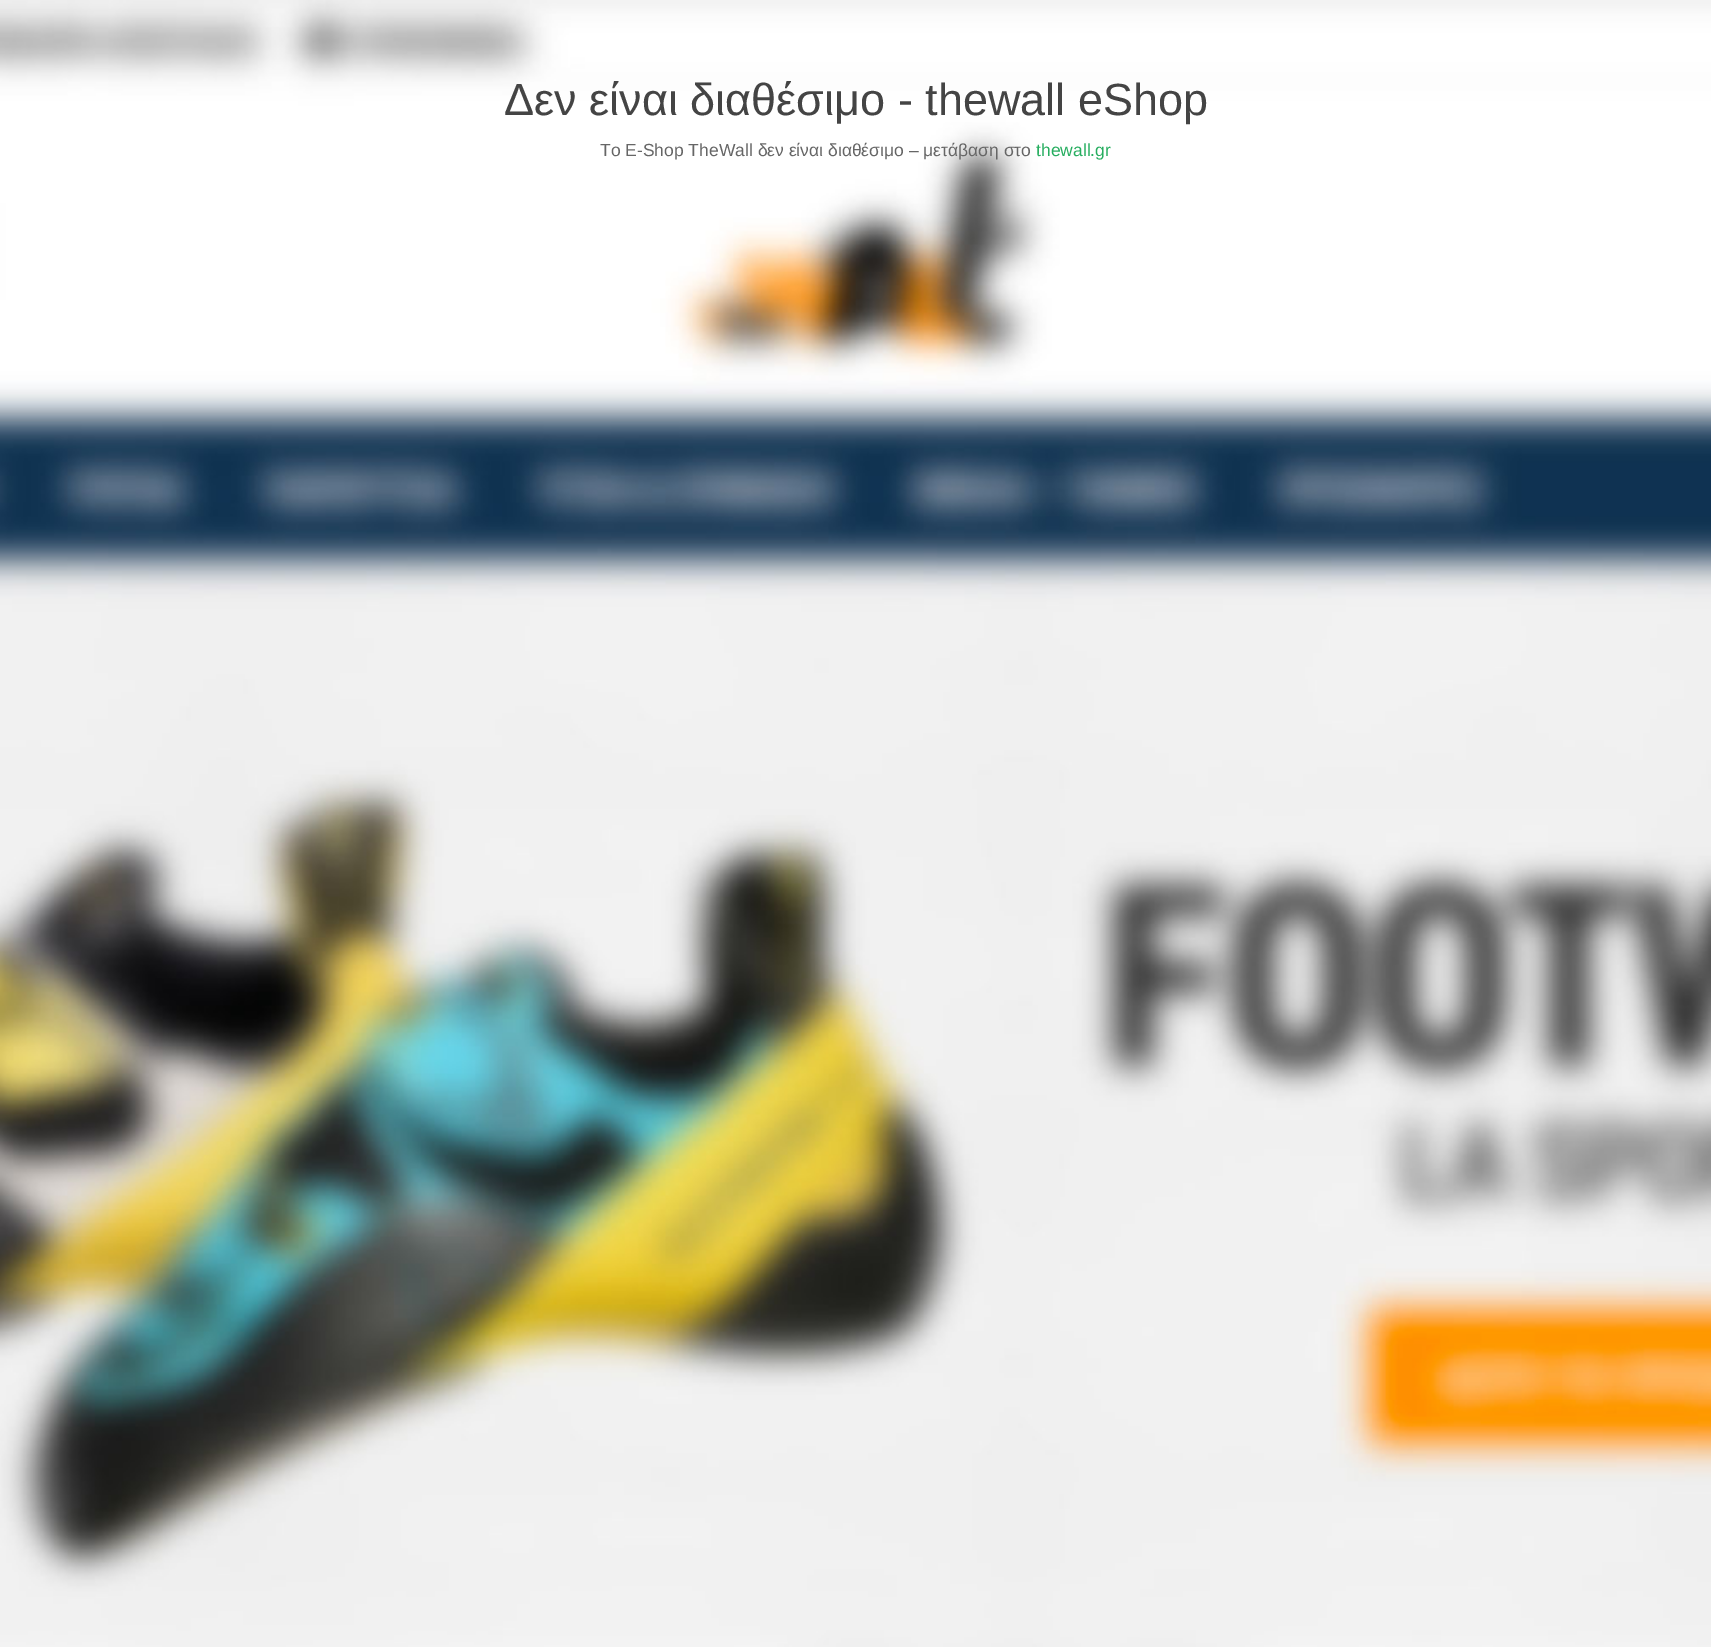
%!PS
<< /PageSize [1711 1647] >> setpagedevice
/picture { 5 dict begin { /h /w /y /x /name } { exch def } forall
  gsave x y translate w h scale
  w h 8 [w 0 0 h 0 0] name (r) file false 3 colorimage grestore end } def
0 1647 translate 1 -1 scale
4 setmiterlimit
1 setgray
0 0 1711 1647 rectfill
(img1.rgb) 0 0 1711 1647 picture
/LiberationSans-Regular [45 0 0 -45 0 0] selectfont
0.267 setgray
504 115 moveto (Δεν είναι διαθέσιμο - thewall eShop) show
/LiberationSans-Regular [17.5 0 0 -17.5 0 0] selectfont
0.4 setgray
600 156 moveto (Το E-Shop TheWall δεν είναι διαθέσιμο – μετάβαση στο) show
0.153 0.682 0.376 setrgbcolor
1036 156 moveto (thewall.gr) show
showpage
